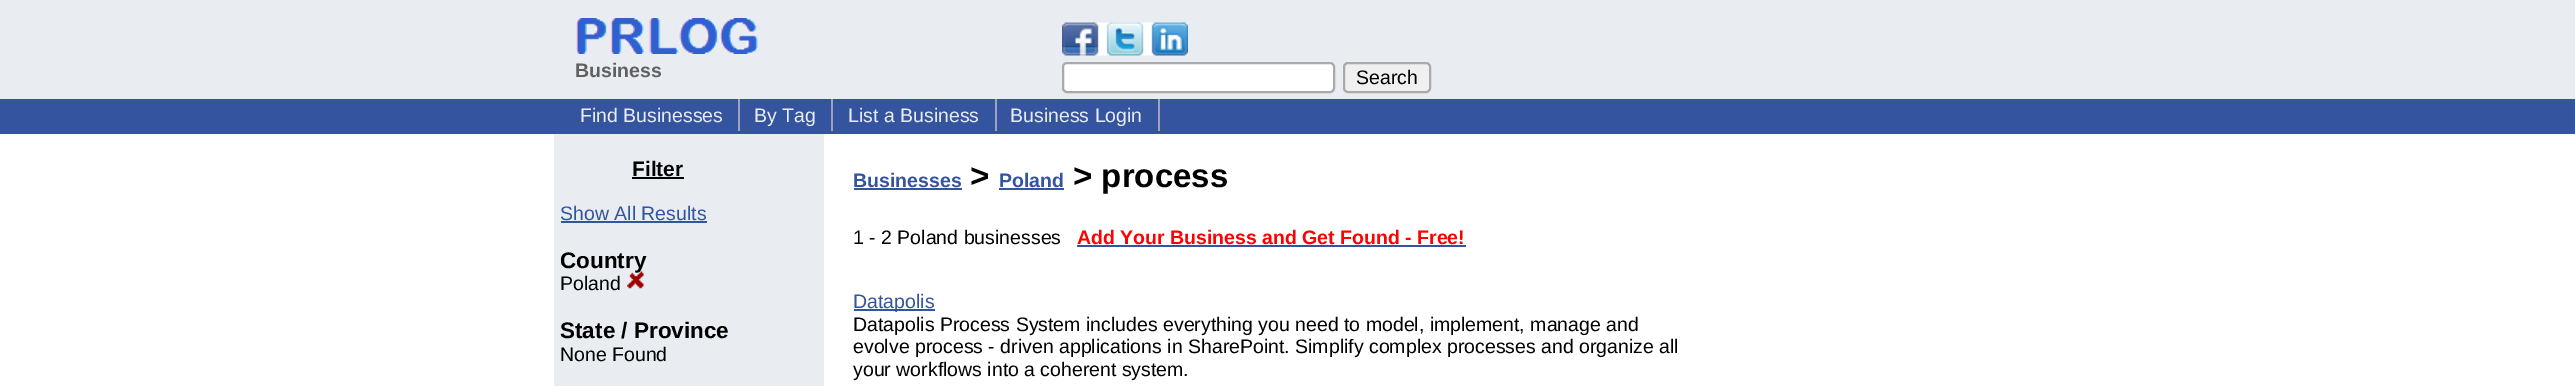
%!PS
<< /PageSize [2575 386] >> setpagedevice
/roundrect { 5 dict begin { /r /h /w /y /x } { exch def } forall
  x r add y moveto x w add y 2 copy h add r arct x w add y h add x 1 index r arct
  x y h add x y r arct x y 2 copy exch w add exch r arct closepath end } def
/picture { 5 dict begin { /h /w /y /x /name } { exch def } forall
  gsave x y translate w h scale
  w h 8 [w 0 0 h 0 0] name (r) file false 3 colorimage grestore end } def
0 386 translate 1 -1 scale
4 setmiterlimit
1 setgray
0 0 2575 386 rectfill
0.914 0.929 0.949 setrgbcolor
0 0 2575 99 rectfill
(img1.rgb) 576 18 182 36 picture
/LiberationSans-Bold [19.5 0 0 -19.5 0 0] selectfont
0.376 setgray
575 77 moveto (Business) show
(img2.rgb) 1062 22 126 34 picture
1 setgray
1063 63 271 29 4 roundrect gsave fill grestore
0.667 setgray
2 setlinewidth
stroke
0.941 setgray
1344 63 86 29 4 roundrect gsave fill grestore
0.667 setgray
stroke
/LiberationSans-Regular [19.5 0 0 -19.5 0 0] selectfont
0 setgray
1356 84 moveto (Search) show
0.204 0.329 0.627 setrgbcolor
0 99 2575 35 rectfill
0.627 0.627 0.753 setrgbcolor
738 99 2 32 rectfill
0.914 0.929 0.949 setrgbcolor
580 122 moveto (Find Businesses) show
0.627 0.627 0.753 setrgbcolor
831 99 2 32 rectfill
0.914 0.929 0.949 setrgbcolor
754 122 moveto (By Tag) show
0.627 0.627 0.753 setrgbcolor
995 99 2 32 rectfill
0.914 0.929 0.949 setrgbcolor
848 122 moveto (List a Business) show
0.627 0.627 0.753 setrgbcolor
1158 99 2 32 rectfill
0.914 0.929 0.949 setrgbcolor
1010 122 moveto (Business Login) show
554 134 270 252 rectfill
/LiberationSans-Bold [21 0 0 -21 0 0] selectfont
0 setgray
632 176 moveto (Filter) show
632 177 52 2 rectfill
/LiberationSans-Regular [19.5 0 0 -19.5 0 0] selectfont
0.204 0.329 0.627 setrgbcolor
560 220 moveto (Show All Results) show
561 221 146 2 rectfill
/LiberationSans-Bold [22.5 0 0 -22.5 0 0] selectfont
0 setgray
560 268 moveto (Country) show
/LiberationSans-Regular [19.5 0 0 -19.5 0 0] selectfont
560 290 moveto (Poland) show
(img3.rgb) 627 271 17 18 picture
/LiberationSans-Bold [22.5 0 0 -22.5 0 0] selectfont
560 338 moveto (State / Province) show
/LiberationSans-Regular [19.5 0 0 -19.5 0 0] selectfont
560 361 moveto (None Found) show
/LiberationSans-Bold [19.5 0 0 -19.5 0 0] selectfont
0.204 0.329 0.627 setrgbcolor
853 187 moveto (Businesses) show
854 188 108 2 rectfill
/LiberationSans-Bold [33 0 0 -33 0 0] selectfont
0 setgray
970 187 moveto (>) show
/LiberationSans-Bold [19.5 0 0 -19.5 0 0] selectfont
0.204 0.329 0.627 setrgbcolor
999 187 moveto (Poland) show
999 188 65 2 rectfill
/LiberationSans-Bold [33 0 0 -33 0 0] selectfont
0 setgray
1073 187 moveto (> process) show
/LiberationSans-Regular [19.5 0 0 -19.5 0 0] selectfont
853 244 moveto (1 - 2 Poland businesses) show
/LiberationSans-Bold [19.5 0 0 -19.5 0 0] selectfont
1 0 0 setrgbcolor
1077 244 moveto (Add Your Business and Get Found - Free!) show
0.204 0.329 0.627 setrgbcolor
1077 245 389 2 rectfill
854 309 81 2 rectfill
/LiberationSans-Regular [19.5 0 0 -19.5 0 0] selectfont
853 308 moveto (Datapolis) show
0 setgray
853 331 moveto (Datapolis Process System includes everything you need to model, implement, manage and) show
853 353 moveto (evolve process - driven applications in SharePoint. Simplify complex processes and organize all) show
853 376 moveto (your workflows into a coherent system.) show
showpage
